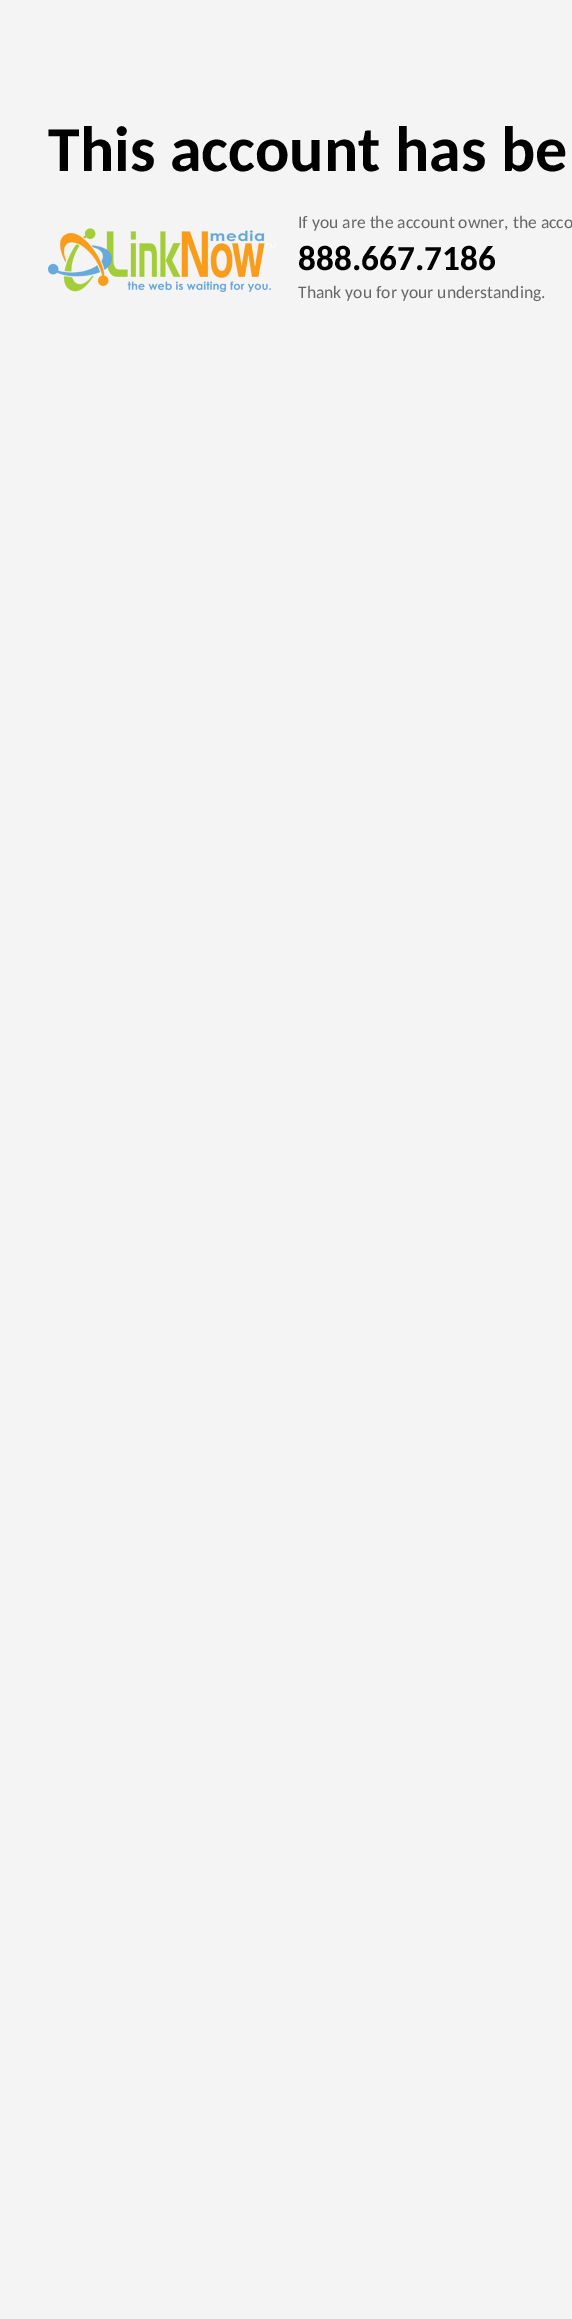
%!PS
<< /PageSize [572 2319] >> setpagedevice
/picture { 5 dict begin { /h /w /y /x /name } { exch def } forall
  gsave x y translate w h scale
  w h 8 [w 0 0 h 0 0] name (r) file false 3 colorimage grestore end } def
0 2319 translate 1 -1 scale
4 setmiterlimit
0.957 setgray
0 0 572 2319 rectfill
/Carlito-Bold [64 0 0 -64 0 0] selectfont
0 setgray
48 171 moveto (This account has be) show
/Carlito-Regular [17.6 0 0 -17.6 0 0] selectfont
0.4 setgray
298 228 moveto (If you are the account owner, the acco) show
(img1.rgb) 48 228 228 64 picture
/Carlito-Bold [35.25 0 0 -35.25 0 0] selectfont
0 setgray
298 270 moveto (888.667.7186) show
/Carlito-Regular [17.6 0 0 -17.6 0 0] selectfont
0.4 setgray
298 298 moveto (Thank you for your understanding.) show
showpage
